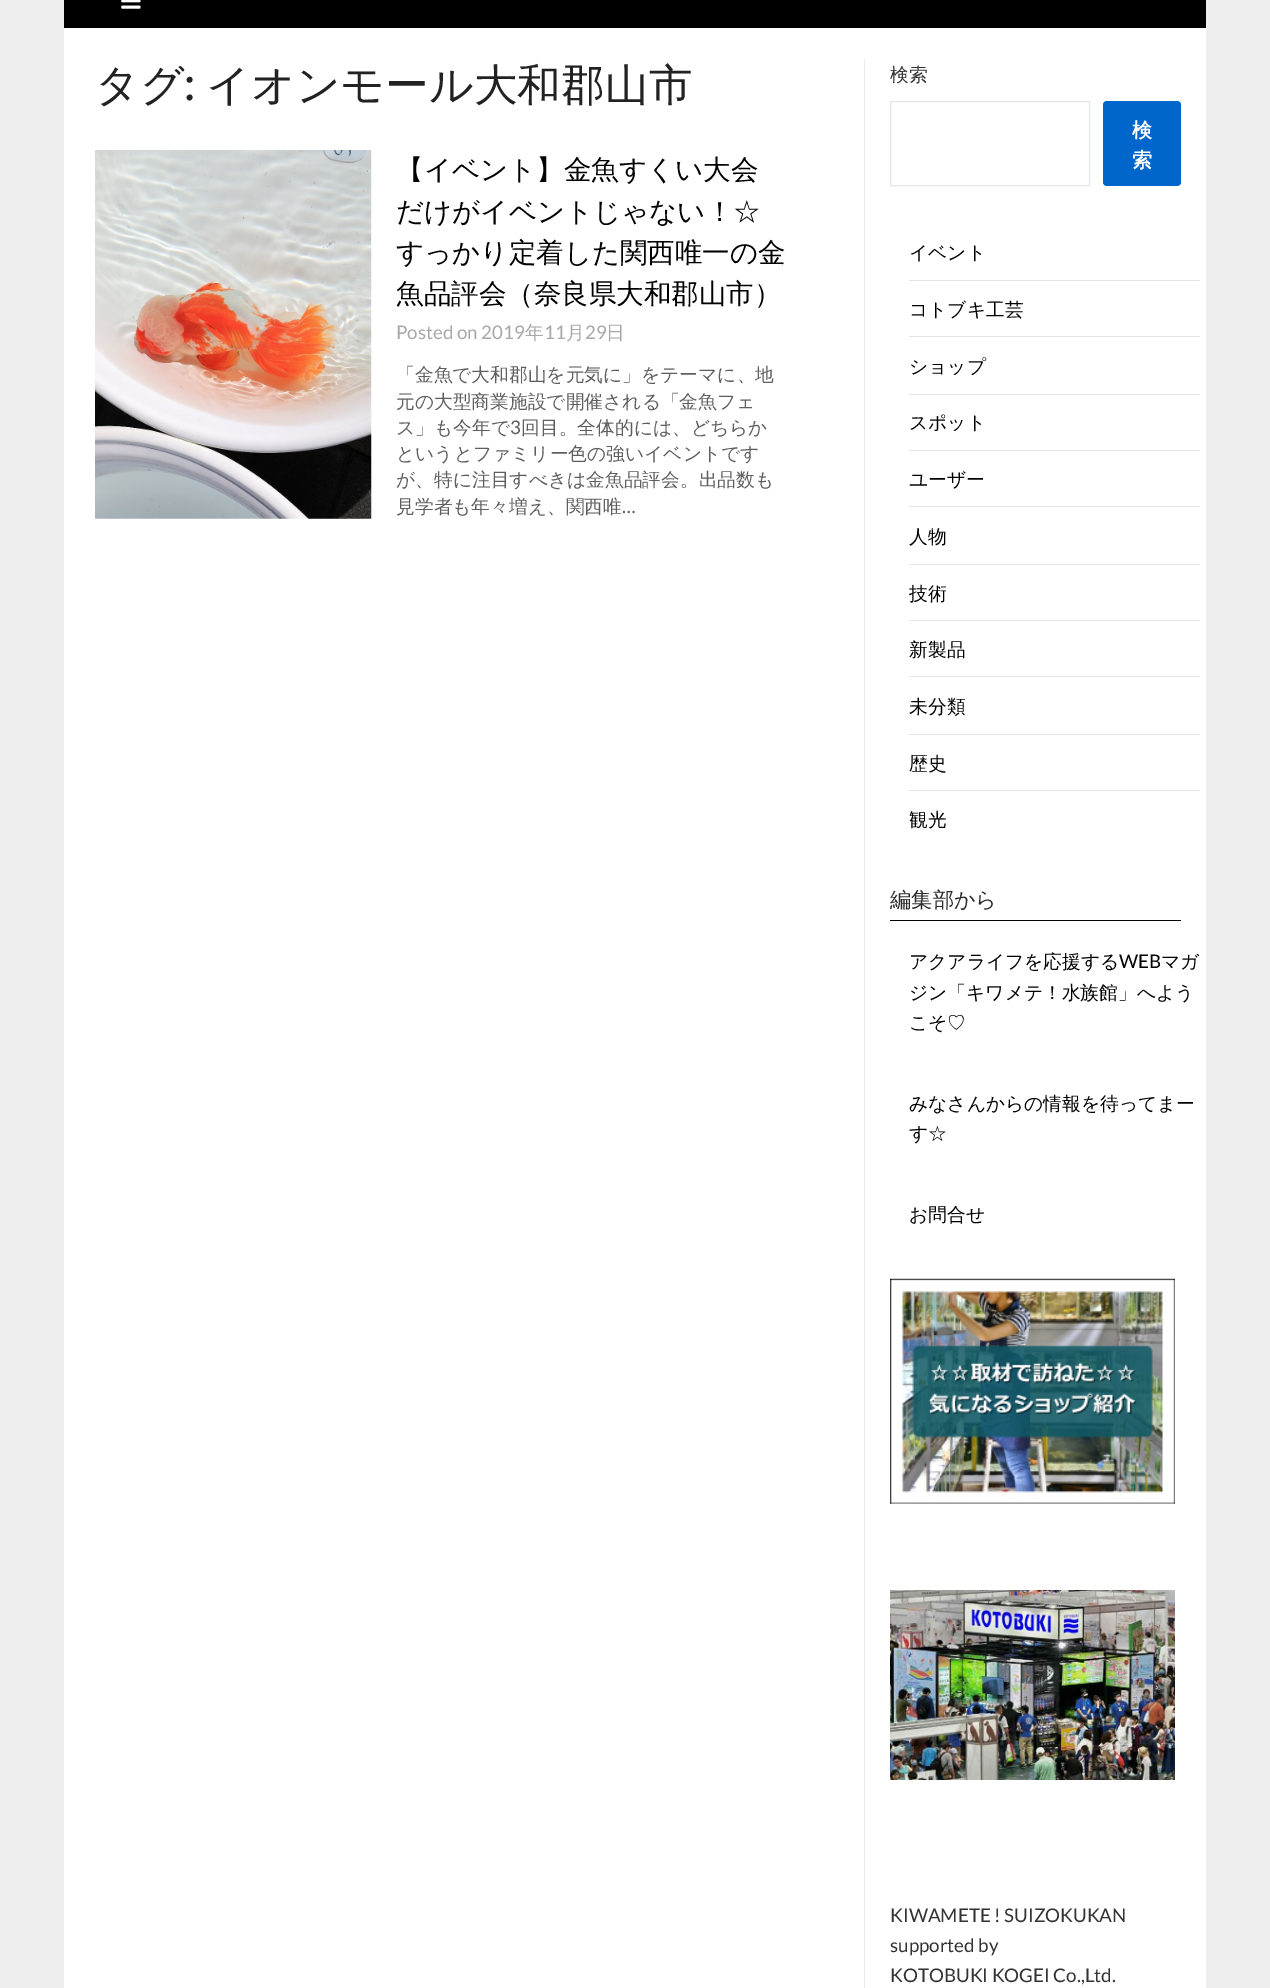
%!PS
<< /PageSize [1270 1988] >> setpagedevice
/roundrect { 5 dict begin { /r /h /w /y /x } { exch def } forall
  x r add y moveto x w add y 2 copy h add r arct x w add y h add x 1 index r arct
  x y h add x y r arct x y 2 copy exch w add exch r arct closepath end } def
/picture { 5 dict begin { /h /w /y /x /name } { exch def } forall
  gsave x y translate w h scale
  w h 8 [w 0 0 h 0 0] name (r) file false 3 colorimage grestore end } def
0 1988 translate 1 -1 scale
4 setmiterlimit
0.933 setgray
0 0 1270 1988 rectfill
0 setgray
64 0 1142 28 rectfill
(img1.rgb) 121 0 20 9 picture
1 setgray
64 28 1142 1960 rectfill
/WenQuanYiZenHei-Medium [43.75 0 0 -43.75 0 0] selectfont
0.133 setgray
95 100 moveto (タグ) show
/Merriweather-Regular [43.75 0 0 -43.75 0 0] selectfont
184 100 moveto (:) show
/WenQuanYiZenHei-Medium [43.75 0 0 -43.75 0 0] selectfont
206 100 moveto (イオンモール大和郡山市) show
(img2.rgb) 95 150 277 369 picture
/WenQuanYiZenHei-Medium [27.5 0 0 -27.5 0 0] selectfont
0 setgray
396 179 moveto (【イベント】金魚すくい大会) show
396 221 moveto (だけがイベントじゃない！☆) show
396 262 moveto (すっかり定着した関西唯一の金) show
396 303 moveto (魚品評会（奈良県大和郡山市）) show
/Lato-Regular [18.75 0 0 -18.75 0 0] selectfont
0.659 setgray
396 339 moveto (Posted on 2019) show
/WenQuanYiZenHei-Medium [18.75 0 0 -18.75 0 0] selectfont
525 339 moveto (年) show
/Lato-Regular [18.75 0 0 -18.75 0 0] selectfont
544 339 moveto (11) show
/WenQuanYiZenHei-Medium [18.75 0 0 -18.75 0 0] selectfont
566 339 moveto (月) show
/Lato-Regular [18.75 0 0 -18.75 0 0] selectfont
585 339 moveto (29) show
/WenQuanYiZenHei-Medium [18.75 0 0 -18.75 0 0] selectfont
606 339 moveto (日) show
0.369 setgray
396 381 moveto (「金魚で大和郡山を元気に」をテーマに、地) show
396 408 moveto (元の大型商業施設で開催される「金魚フェ) show
396 434 moveto (ス」も今年で) show
/Lato-Regular [18.75 0 0 -18.75 0 0] selectfont
510 434 moveto (3) show
/WenQuanYiZenHei-Medium [18.75 0 0 -18.75 0 0] selectfont
521 434 moveto (回目。全体的には、どちらか) show
396 460 moveto (というとファミリー色の強いイベントです) show
396 486 moveto (が、特に注目すべきは金魚品評会。出品数も) show
396 513 moveto (見学者も年々増え、関西唯) show
/Lato-Regular [18.75 0 0 -18.75 0 0] selectfont
622 513 moveto (…) show
0.925 setgray
864 59 1 1929 rectfill
/WenQuanYiZenHei-Medium [18.75 0 0 -18.75 0 0] selectfont
0.2 setgray
890 81 moveto (検索) show
0.898 0.902 0.914 setrgbcolor
890.5 101.5 199 84 rectstroke
0 0.4 0.8 setrgbcolor
1103 101 78 85 4 roundrect fill
/WenQuanYiZenHei-Bold [20 0 0 -20 0 0] selectfont
1 setgray
1132 137 moveto (検) show
1132 167 moveto (索) show
0.902 setgray
909 280 291 1 rectfill
/WenQuanYiZenHei-Medium [18.75 0 0 -18.75 0 0] selectfont
0 setgray
909 259 moveto (イベント) show
0.902 setgray
909 336 291 1 rectfill
0 setgray
909 316 moveto (コトブキ工芸) show
0.902 setgray
909 394 291 1 rectfill
0 setgray
909 373 moveto (ショップ) show
0.902 setgray
909 450 291 1 rectfill
0 setgray
909 429 moveto (スポット) show
0.902 setgray
909 506 291 1 rectfill
0 setgray
909 486 moveto (ユーザー) show
0.902 setgray
909 564 291 1 rectfill
0 setgray
909 543 moveto (人物) show
0.902 setgray
909 620 291 1 rectfill
0 setgray
909 600 moveto (技術) show
0.902 setgray
909 676 291 1 rectfill
0 setgray
909 656 moveto (新製品) show
0.902 setgray
909 734 291 1 rectfill
0 setgray
909 713 moveto (未分類) show
0.902 setgray
909 790 291 1 rectfill
0 setgray
909 770 moveto (歴史) show
909 826 moveto (観光) show
890 920 291 1 rectfill
/WenQuanYiZenHei-Medium [21.25 0 0 -21.25 0 0] selectfont
0.169 setgray
890 907 moveto (編集部から) show
/WenQuanYiZenHei-Medium [18.75 0 0 -18.75 0 0] selectfont
0 setgray
909 968 moveto (アクアライフを応援する) show
/Lato-Regular [18.75 0 0 -18.75 0 0] selectfont
1119 968 moveto (WEB) show
/WenQuanYiZenHei-Medium [18.75 0 0 -18.75 0 0] selectfont
1161 968 moveto (マガ) show
909 999 moveto (ジン「キワメテ！水族館」へよう) show
909 1029 moveto (こそ♡) show
909 1110 moveto (みなさんからの情報を待ってまー) show
909 1140 moveto (す☆) show
909 1221 moveto (お問合せ) show
(img3.rgb) 890 1278 285 226 picture
(img4.rgb) 890 1590 285 190 picture
/Lato-Regular [18.75 0 0 -18.75 0 0] selectfont
0.2 setgray
890 1922 moveto (KIWAMETE ! SUIZOKUKAN) show
890 1952 moveto (supported by) show
890 1982 moveto (KOTOBUKI KOGEI Co.,Ltd.) show
showpage
